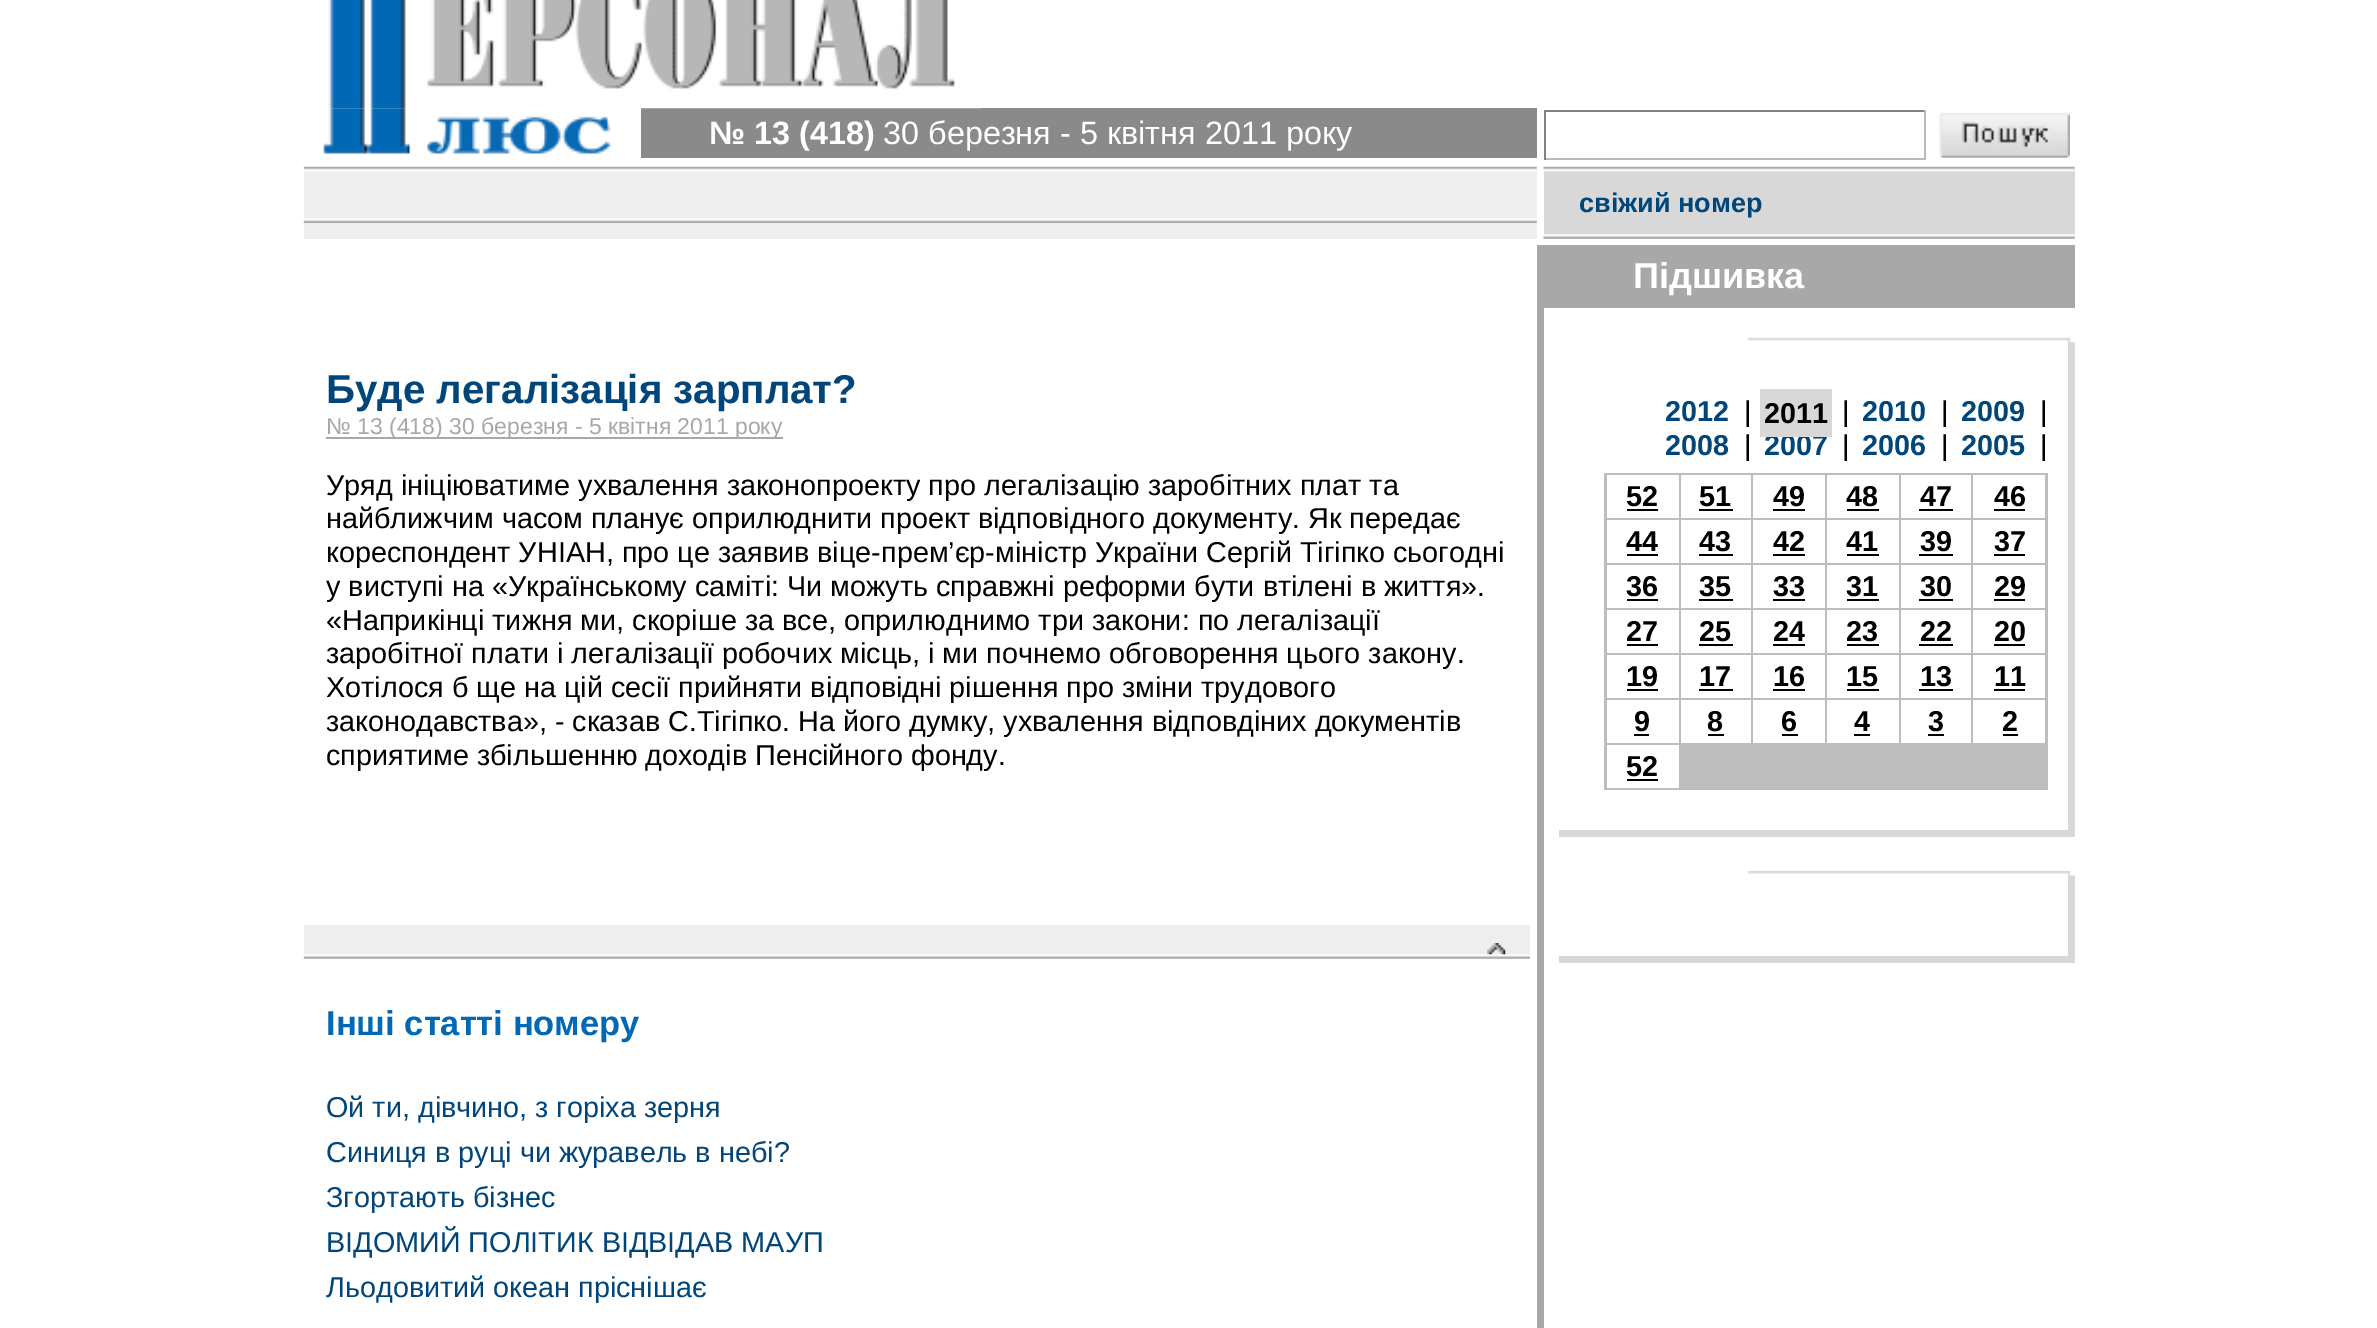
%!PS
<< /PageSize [2377 1328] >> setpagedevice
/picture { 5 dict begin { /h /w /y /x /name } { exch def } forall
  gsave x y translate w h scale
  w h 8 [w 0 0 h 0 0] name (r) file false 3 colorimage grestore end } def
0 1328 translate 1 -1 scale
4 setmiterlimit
1 setgray
0 0 2377 1328 rectfill
(img2.rgb) 323 108 288 47 picture
0.541 setgray
641 108 896 50 rectfill
(img1.rgb) 328 0 653 109 picture
/LiberationSans-Bold [32.4 0 0 -32.4 0 0] selectfont
1 setgray
709 144 moveto (№ 13 \(418\)) show
/LiberationSans-Regular [32.4 0 0 -32.4 0 0] selectfont
883 144 moveto (30 березня - 5 квітня 2011 року) show
0.51 setgray
1544 110 382 2 rectfill
0.725 setgray
1924 110 2 50 rectfill
1544 158 382 2 rectfill
0.51 setgray
1544 110 2 50 rectfill
(img3.rgb) 1939 112 131 46 picture
0.933 setgray
304 167 1233 72 rectfill
(img4.rgb) 303 166 1234 6 picture
(img5.rgb) 303 218 1234 5 picture
0.847 setgray
1544 167 531 72 rectfill
(img6.rgb) 1543 166 532 6 picture
(img7.rgb) 1543 234 532 5 picture
/LiberationSans-Bold [27 0 0 -27 0 0] selectfont
0 0.275 0.478 setrgbcolor
1579 212 moveto (свіжий номер) show
/LiberationSans-Bold [40.25 0 0 -40.25 0 0] selectfont
326 403 moveto (Буде легалізація зарплат?) show
0.659 setgray
326 437 457 2 rectfill
/LiberationSans-Regular [23 0 0 -23 0 0] selectfont
326 434 moveto (№ 13 \(418\) 30 березня - 5 квітня 2011 року) show
/LiberationSans-Regular [28.8 0 0 -28.8 0 0] selectfont
0 setgray
326 495 moveto (Уряд ініціюватиме ухвалення законопроекту про легалізацію заробітних плат та) show
326 528 moveto (найближчим часом планує оприлюднити проект відповідного документу. Як передає) show
326 562 moveto (кореспондент УНІАН, про це заявив віце-прем’єр-міністр України Сергій Тігіпко сьогодні) show
326 596 moveto (у виступі на «Українському саміті: Чи можуть справжні реформи бути втілені в життя».) show
326 630 moveto («Наприкінці тижня ми, скоріше за все, оприлюднимо три закони: по легалізації) show
326 663 moveto (заробітної плати і легалізації робочих місць, і ми почнемо обговорення цього закону.) show
326 697 moveto (Хотілося б ще на цій сесії прийняти відповідні рішення про зміни трудового) show
326 731 moveto (законодавства», - сказав С.Тігіпко. На його думку, ухвалення відповдіних документів) show
326 765 moveto (сприятиме збільшенню доходів Пенсійного фонду.) show
0.933 setgray
304 925 1226 34 rectfill
(img8.rgb) 303 954 1227 5 picture
(img9.rgb) 1487 943 19 12 picture
/LiberationSans-Bold [34.5 0 0 -34.5 0 0] selectfont
0 0.408 0.71 setrgbcolor
326 1035 moveto (Інші статті номеру) show
/LiberationSans-Regular [28.8 0 0 -28.8 0 0] selectfont
0 0.275 0.478 setrgbcolor
326 1117 moveto (Ой ти, дівчино, з горіха зерня) show
326 1162 moveto (Синиця в руці чи журавель в небі?) show
326 1207 moveto (Згортають бізнес) show
326 1252 moveto (ВІДОМИЙ ПОЛІТИК ВІДВІДАВ МАУП) show
326 1297 moveto (Льодовитий океан пріснішає) show
0.659 setgray
1537 245 7 1083 rectfill
1544 245 531 63 rectfill
/LiberationSans-Bold [36 0 0 -36 0 0] selectfont
1 setgray
1633 288 moveto (Підшивка) show
0.847 setgray
2068 342 7 495 rectfill
(img10.rgb) 1748 337 327 6 picture
1559 830 516 7 rectfill
/LiberationSans-Bold [28.8 0 0 -28.8 0 0] selectfont
0 0.275 0.478 setrgbcolor
1665 421 moveto (2012) show
/LiberationSans-Regular [28.8 0 0 -28.8 0 0] selectfont
0 setgray
1744 421 moveto (|) show
/LiberationSans-Bold [28.8 0 0 -28.8 0 0] selectfont
0 0.275 0.478 setrgbcolor
1764 455 moveto (2007) show
0.847 setgray
1760 389 72 48 rectfill
0 setgray
1764 423 moveto (2011) show
/LiberationSans-Regular [28.8 0 0 -28.8 0 0] selectfont
1842 421 moveto (|) show
/LiberationSans-Bold [28.8 0 0 -28.8 0 0] selectfont
0 0.275 0.478 setrgbcolor
1862 421 moveto (2010) show
/LiberationSans-Regular [28.8 0 0 -28.8 0 0] selectfont
0 setgray
1941 421 moveto (|) show
/LiberationSans-Bold [28.8 0 0 -28.8 0 0] selectfont
0 0.275 0.478 setrgbcolor
1961 421 moveto (2009) show
/LiberationSans-Regular [28.8 0 0 -28.8 0 0] selectfont
0 setgray
2040 421 moveto (|) show
/LiberationSans-Bold [28.8 0 0 -28.8 0 0] selectfont
0 0.275 0.478 setrgbcolor
1665 455 moveto (2008) show
/LiberationSans-Regular [28.8 0 0 -28.8 0 0] selectfont
0 setgray
1744 455 moveto (|) show
1842 455 moveto (|) show
/LiberationSans-Bold [28.8 0 0 -28.8 0 0] selectfont
0 0.275 0.478 setrgbcolor
1862 455 moveto (2006) show
/LiberationSans-Regular [28.8 0 0 -28.8 0 0] selectfont
0 setgray
1941 455 moveto (|) show
/LiberationSans-Bold [28.8 0 0 -28.8 0 0] selectfont
0 0.275 0.478 setrgbcolor
1961 455 moveto (2005) show
/LiberationSans-Regular [28.8 0 0 -28.8 0 0] selectfont
0 setgray
2040 455 moveto (|) show
0.741 setgray
1604 473 444 317 rectfill
1 setgray
1607 475 72 43 rectfill
/LiberationSans-Bold [28.8 0 0 -28.8 0 0] selectfont
0 setgray
1626 506 moveto (52) show
1627 509 31 2 rectfill
1 setgray
1681 475 70 43 rectfill
0 setgray
1699 506 moveto (51) show
1699 509 34 2 rectfill
1 setgray
1753 475 72 43 rectfill
0 setgray
1773 506 moveto (49) show
1773 509 32 2 rectfill
1 setgray
1827 475 72 43 rectfill
0 setgray
1846 506 moveto (48) show
1847 509 32 2 rectfill
1 setgray
1901 475 70 43 rectfill
0 setgray
1920 506 moveto (47) show
1919 509 34 2 rectfill
1 setgray
1973 475 72 43 rectfill
0 setgray
1994 506 moveto (46) show
1994 509 31 2 rectfill
1 setgray
1607 520 72 43 rectfill
0 setgray
1626 551 moveto (44) show
1627 554 31 2 rectfill
1 setgray
1681 520 70 43 rectfill
0 setgray
1699 551 moveto (43) show
1699 554 34 2 rectfill
1 setgray
1753 520 72 43 rectfill
0 setgray
1773 551 moveto (42) show
1773 554 32 2 rectfill
1 setgray
1827 520 72 43 rectfill
0 setgray
1846 551 moveto (41) show
1847 554 32 2 rectfill
1 setgray
1901 520 70 43 rectfill
0 setgray
1920 551 moveto (39) show
1919 554 34 2 rectfill
1 setgray
1973 520 72 43 rectfill
0 setgray
1994 551 moveto (37) show
1994 554 31 2 rectfill
1 setgray
1607 565 72 43 rectfill
0 setgray
1626 596 moveto (36) show
1627 599 31 2 rectfill
1 setgray
1681 565 70 43 rectfill
0 setgray
1699 596 moveto (35) show
1699 599 34 2 rectfill
1 setgray
1753 565 72 43 rectfill
0 setgray
1773 596 moveto (33) show
1773 599 32 2 rectfill
1 setgray
1827 565 72 43 rectfill
0 setgray
1846 596 moveto (31) show
1847 599 32 2 rectfill
1 setgray
1901 565 70 43 rectfill
0 setgray
1920 596 moveto (30) show
1919 599 34 2 rectfill
1 setgray
1973 565 72 43 rectfill
0 setgray
1994 596 moveto (29) show
1994 599 31 2 rectfill
1 setgray
1607 610 72 43 rectfill
0 setgray
1626 641 moveto (27) show
1627 644 31 2 rectfill
1 setgray
1681 610 70 43 rectfill
0 setgray
1699 641 moveto (25) show
1699 644 34 2 rectfill
1 setgray
1753 610 72 43 rectfill
0 setgray
1773 641 moveto (24) show
1773 644 32 2 rectfill
1 setgray
1827 610 72 43 rectfill
0 setgray
1846 641 moveto (23) show
1847 644 32 2 rectfill
1 setgray
1901 610 70 43 rectfill
0 setgray
1920 641 moveto (22) show
1919 644 34 2 rectfill
1 setgray
1973 610 72 43 rectfill
0 setgray
1994 641 moveto (20) show
1994 644 31 2 rectfill
1 setgray
1607 655 72 43 rectfill
0 setgray
1626 686 moveto (19) show
1627 689 31 2 rectfill
1 setgray
1681 655 70 43 rectfill
0 setgray
1699 686 moveto (17) show
1699 689 34 2 rectfill
1 setgray
1753 655 72 43 rectfill
0 setgray
1773 686 moveto (16) show
1773 689 32 2 rectfill
1 setgray
1827 655 72 43 rectfill
0 setgray
1846 686 moveto (15) show
1847 689 32 2 rectfill
1 setgray
1901 655 70 43 rectfill
0 setgray
1920 686 moveto (13) show
1919 689 34 2 rectfill
1 setgray
1973 655 72 43 rectfill
0 setgray
1994 686 moveto (11) show
1994 689 31 2 rectfill
1 setgray
1607 700 72 43 rectfill
0 setgray
1634 731 moveto (9) show
1634 734 15 2 rectfill
1 setgray
1681 700 70 43 rectfill
0 setgray
1707 731 moveto (8) show
1708 734 16 2 rectfill
1 setgray
1753 700 72 43 rectfill
0 setgray
1781 731 moveto (6) show
1782 734 16 2 rectfill
1 setgray
1827 700 72 43 rectfill
0 setgray
1854 731 moveto (4) show
1854 734 16 2 rectfill
1 setgray
1901 700 70 43 rectfill
0 setgray
1928 731 moveto (3) show
1928 734 16 2 rectfill
1 setgray
1973 700 72 43 rectfill
0 setgray
2002 731 moveto (2) show
2003 734 15 2 rectfill
1 setgray
1607 745 72 43 rectfill
0 setgray
1626 776 moveto (52) show
1627 779 31 2 rectfill
0.847 setgray
2068 875 7 88 rectfill
(img11.rgb) 1748 871 327 5 picture
1559 956 516 7 rectfill
showpage
